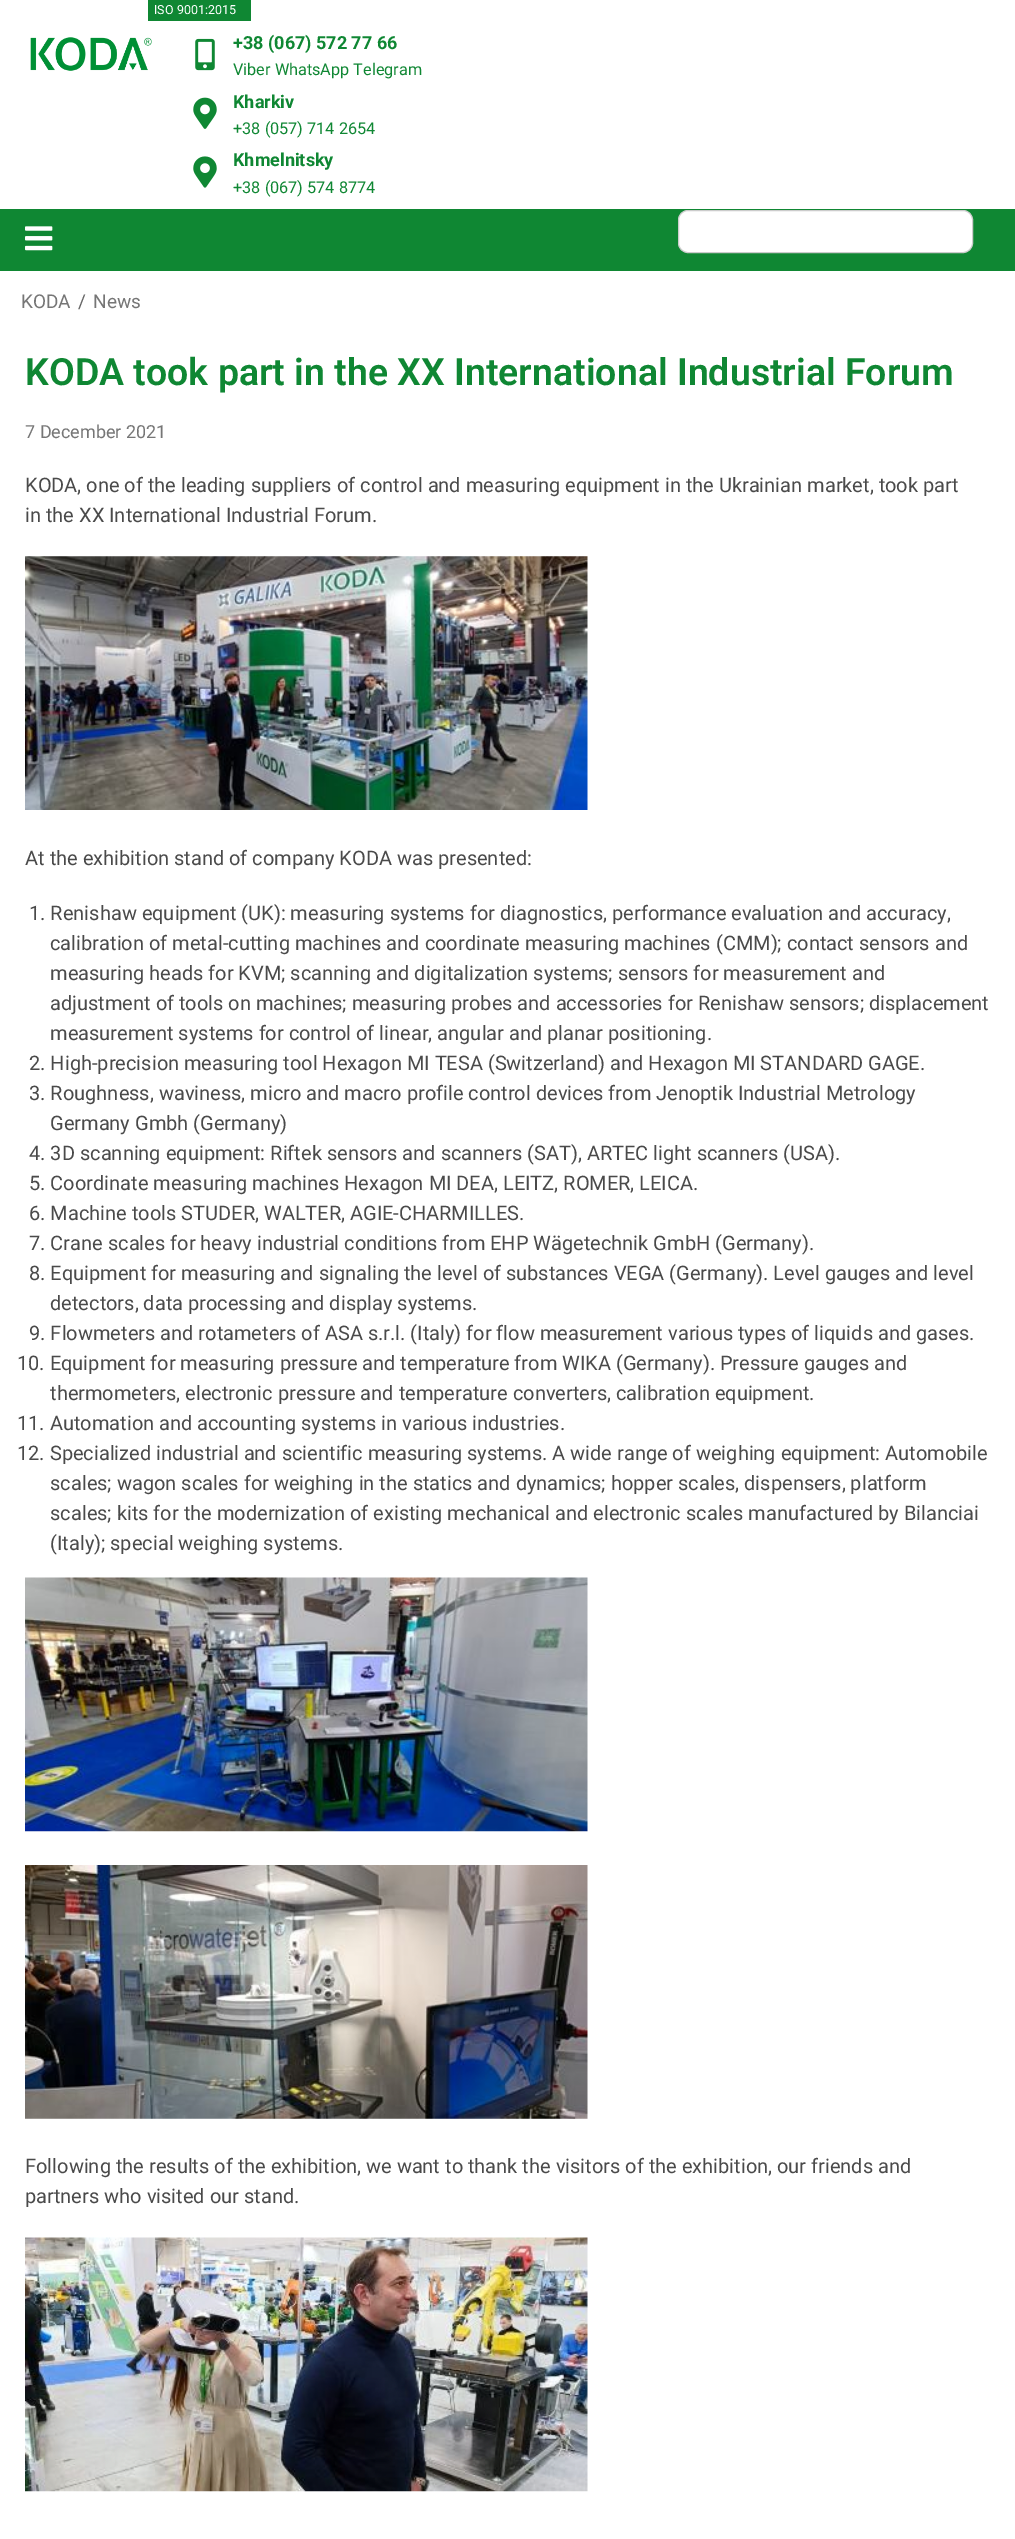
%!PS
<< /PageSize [1015 2539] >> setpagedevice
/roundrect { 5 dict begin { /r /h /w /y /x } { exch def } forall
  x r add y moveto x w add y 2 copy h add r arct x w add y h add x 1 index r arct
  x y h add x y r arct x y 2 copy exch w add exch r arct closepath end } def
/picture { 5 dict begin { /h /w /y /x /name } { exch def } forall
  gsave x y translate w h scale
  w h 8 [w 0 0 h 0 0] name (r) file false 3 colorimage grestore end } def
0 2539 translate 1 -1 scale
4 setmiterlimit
1 setgray
0 0 1015 2539 rectfill
0.059 0.529 0.2 setrgbcolor
148 0 103 21 rectfill
/Roboto-Regular [12.5 0 0 -12.5 0 0] selectfont
1 setgray
154 14 moveto (ISO 9001:2015) show
(img1.rgb) 30 37 122 34 picture
(img2.rgb) 195 38 20 33 picture
/Roboto-Bold [18 0 0 -18 0 0] selectfont
0.059 0.529 0.2 setrgbcolor
233 49 moveto (+38 \(067\) 572 77 66) show
/Roboto-Regular [16.25 0 0 -16.25 0 0] selectfont
233 75 moveto (Viber WhatsApp Telegram) show
(img3.rgb) 193 97 24 32 picture
/Roboto-Bold [18 0 0 -18 0 0] selectfont
233 108 moveto (Kharkiv) show
/Roboto-Regular [16.25 0 0 -16.25 0 0] selectfont
233 134 moveto (+38 \(057\) 714 2654) show
(img4.rgb) 193 156 24 32 picture
/Roboto-Bold [18 0 0 -18 0 0] selectfont
233 166 moveto (Khmelnitsky) show
/Roboto-Regular [16.25 0 0 -16.25 0 0] selectfont
233 193 moveto (+38 \(067\) 574 8774) show
0 209 1015 62 rectfill
(img5.rgb) 25 226 28 25 picture
1 setgray
678.5 210.5 294 42 9.5 roundrect gsave fill grestore
0.8 setgray
stroke
/Roboto-Regular [19 0 0 -19 0 0] selectfont
0.463 setgray
21 308 moveto (KODA) show
0.4 setgray
78 308 moveto (/) show
0.463 setgray
93 308 moveto (News) show
/Roboto-SemiBold [37.5 0 0 -37.5 0 0] selectfont
0.059 0.529 0.2 setrgbcolor
25 385 moveto (KODA took part in the XX International Industrial Forum) show
/Roboto-Regular [18 0 0 -18 0 0] selectfont
0.463 setgray
25 438 moveto (7 December 2021) show
/Roboto-Regular [20 0 0 -20 0 0] selectfont
0.29 setgray
25 492 moveto (KODA, one of the leading suppliers of control and measuring equipment in the Ukrainian market, took part) show
25 522 moveto (in the XX International Industrial Forum.) show
(img6.rgb) 25 556 563 254 picture
25 865 moveto (At the exhibition stand of company KODA was presented:) show
29 920 moveto (1. Renishaw equipment \(UK\): measuring systems for diagnostics, performance evaluation and accuracy,) show
50 950 moveto (calibration of metal-cutting machines and coordinate measuring machines \(CMM\); contact sensors and) show
50 980 moveto (measuring heads for KVM; scanning and digitalization systems; sensors for measurement and) show
50 1010 moveto (adjustment of tools on machines; measuring probes and accessories for Renishaw sensors; displacement) show
50 1040 moveto (measurement systems for control of linear, angular and planar positioning.) show
29 1070 moveto (2. High-precision measuring tool Hexagon MI TESA \(Switzerland\) and Hexagon MI STANDARD GAGE.) show
29 1100 moveto (3. Roughness, waviness, micro and macro profile control devices from Jenoptik Industrial Metrology) show
50 1130 moveto (Germany Gmbh \(Germany\)) show
29 1160 moveto (4. 3D scanning equipment: Riftek sensors and scanners \(SAT\), ARTEC light scanners \(USA\).) show
29 1190 moveto (5. Coordinate measuring machines Hexagon MI DEA, LEITZ, ROMER, LEICA.) show
29 1220 moveto (6. Machine tools STUDER, WALTER, AGIE-CHARMILLES.) show
29 1250 moveto (7. Crane scales for heavy industrial conditions from EHP Wägetechnik GmbH \(Germany\).) show
29 1280 moveto (8. Equipment for measuring and signaling the level of substances VEGA \(Germany\). Level gauges and level) show
50 1310 moveto (detectors, data processing and display systems.) show
29 1340 moveto (9. Flowmeters and rotameters of ASA s.r.l. \(Italy\) for flow measurement various types of liquids and gases.) show
17 1370 moveto (10. Equipment for measuring pressure and temperature from WIKA \(Germany\). Pressure gauges and) show
50 1400 moveto (thermometers, electronic pressure and temperature converters, calibration equipment.) show
17 1430 moveto (11. Automation and accounting systems in various industries.) show
17 1460 moveto (12. Specialized industrial and scientific measuring systems. A wide range of weighing equipment: Automobile) show
50 1490 moveto (scales; wagon scales for weighing in the statics and dynamics; hopper scales, dispensers, platform) show
50 1520 moveto (scales; kits for the modernization of existing mechanical and electronic scales manufactured by Bilanciai) show
50 1550 moveto (\(Italy\); special weighing systems.) show
(img7.rgb) 25 1577 563 255 picture
(img8.rgb) 25 1865 563 254 picture
25 2173 moveto (Following the results of the exhibition, we want to thank the visitors of the exhibition, our friends and) show
25 2203 moveto (partners who visited our stand.) show
(img9.rgb) 25 2237 563 255 picture
showpage
